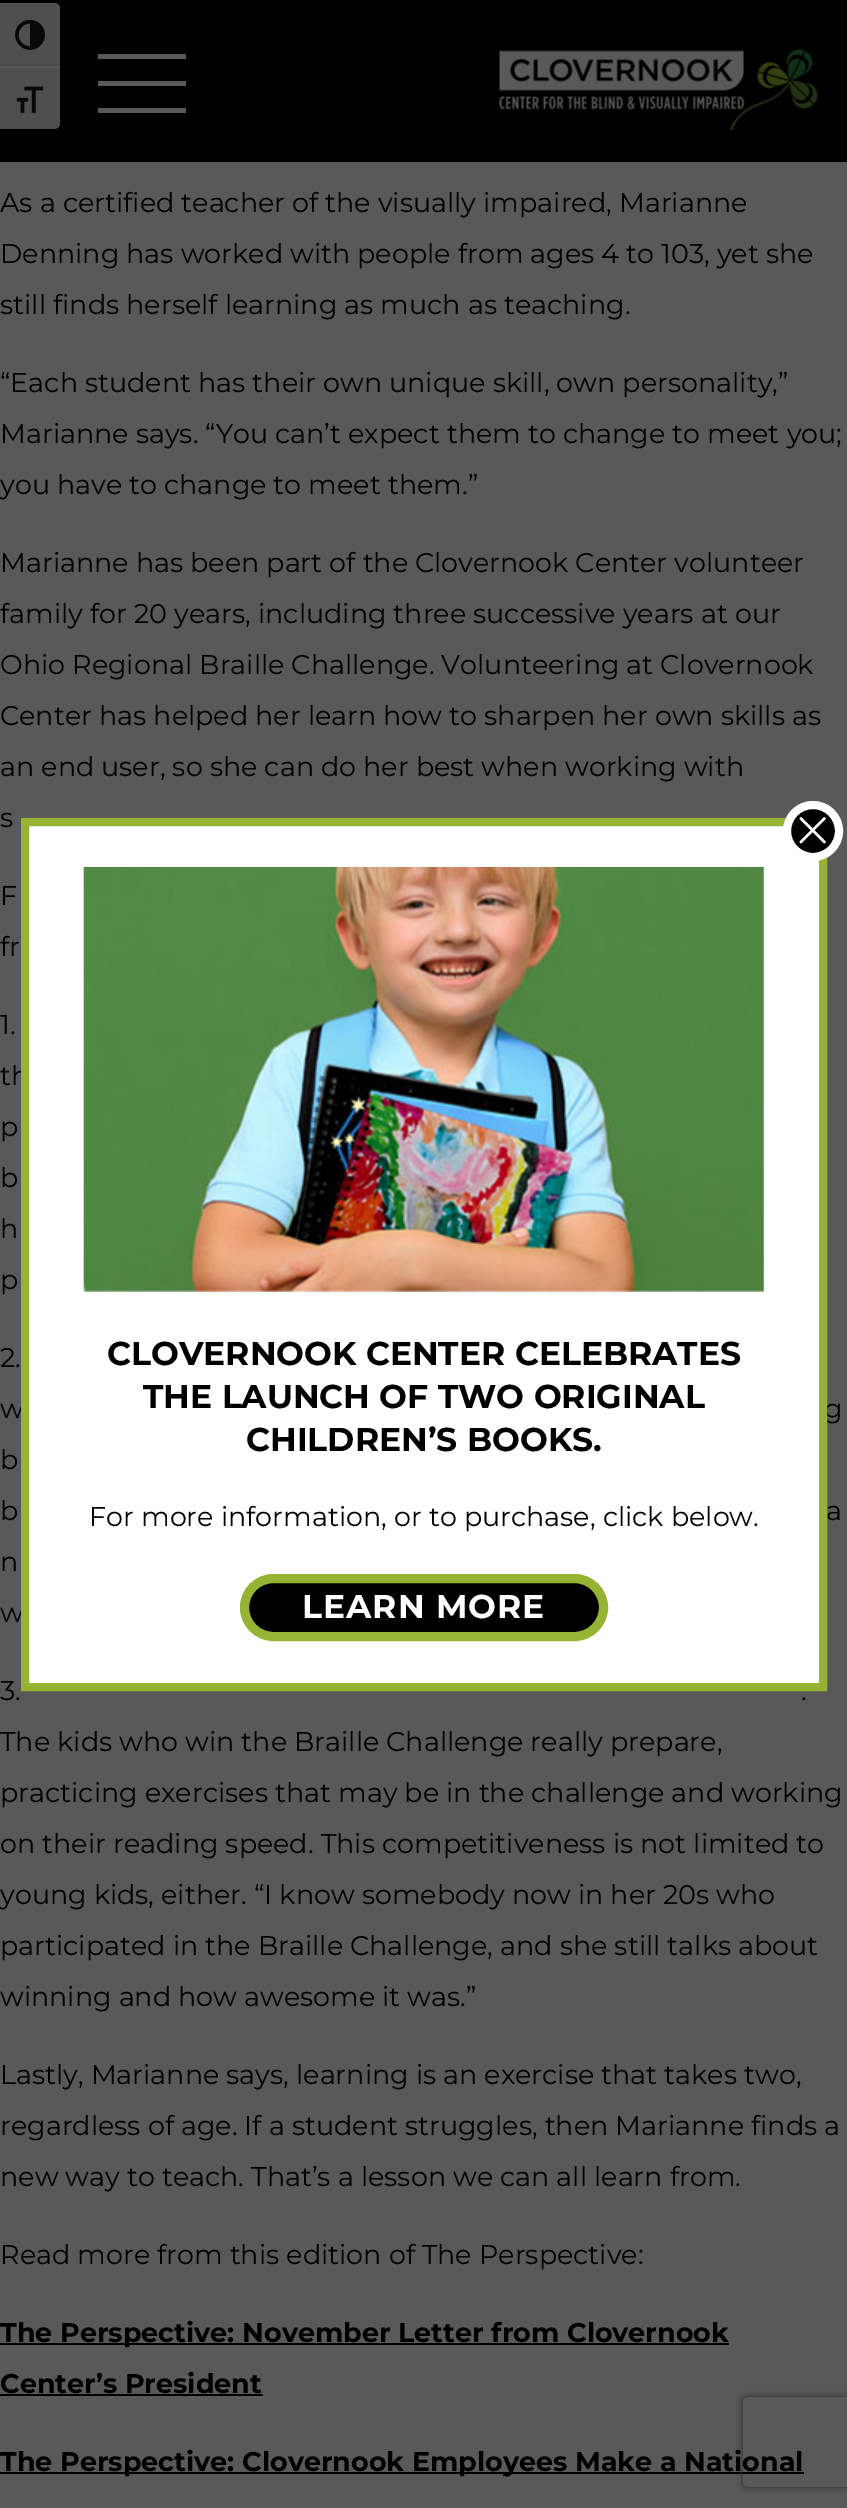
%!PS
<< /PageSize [847 2508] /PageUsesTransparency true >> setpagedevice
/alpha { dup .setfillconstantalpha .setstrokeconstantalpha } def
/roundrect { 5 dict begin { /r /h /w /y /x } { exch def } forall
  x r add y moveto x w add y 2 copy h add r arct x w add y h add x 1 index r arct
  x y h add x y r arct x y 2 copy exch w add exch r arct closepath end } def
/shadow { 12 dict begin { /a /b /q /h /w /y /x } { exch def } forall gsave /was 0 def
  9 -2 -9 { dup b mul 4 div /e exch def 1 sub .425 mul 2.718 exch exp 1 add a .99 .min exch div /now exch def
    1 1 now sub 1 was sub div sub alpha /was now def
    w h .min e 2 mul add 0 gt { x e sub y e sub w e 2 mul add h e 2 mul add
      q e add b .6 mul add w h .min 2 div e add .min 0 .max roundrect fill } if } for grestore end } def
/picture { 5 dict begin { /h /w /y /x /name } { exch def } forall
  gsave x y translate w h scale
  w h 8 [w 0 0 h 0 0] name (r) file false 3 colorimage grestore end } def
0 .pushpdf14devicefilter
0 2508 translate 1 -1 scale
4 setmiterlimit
0.349 setgray
0 0 847 2508 rectfill
0 setgray
0 0 847 162 rectfill
0.31 setgray
newpath 0 3 moveto 54 3 lineto 57.5 3 60 5.5 60 9 curveto 60 66 lineto 0 66 lineto closepath fill
0.337 setgray
newpath 0 3 moveto 0 4 lineto 54 4 lineto 57 4 60 7 60 9 curveto 60 6 57 3 54 3 curveto closepath fill
0.29 setgray
0 64 60 2 rectfill
(img1.rgb) 15 19 30 31 picture
0.31 setgray
newpath 0 66 moveto 60 66 lineto 60 123 lineto 60 126.5 57.5 129 54 129 curveto 0 129 lineto closepath fill
0.337 setgray
0 66 60 2 rectfill
0.29 setgray
newpath 0 128 moveto 0 129 lineto 54 129 lineto 57 129 60 126 60 123 curveto 60 125 57 128 54 128 curveto closepath fill
(img2.rgb) 16 86 28 27 picture
0.349 setgray
98 81 88 5 rectfill
98 54 88 5 rectfill
98 108 88 5 rectfill
(img3.rgb) 499 49 319 82 picture
/Montserrat-Thin [27 0 0 -27 0 0] selectfont
0 setgray
0 212 moveto (As a certified teacher of the visually impaired, Marianne) show
0 263 moveto (Denning has worked with people from ages 4 to 103, yet she) show
0 314 moveto (still finds herself learning as much as teaching.) show
0 392 moveto (“Each student has their own unique skill, own personality,”) show
0 443 moveto (Marianne says. “You can’t expect them to change to meet you;) show
0 494 moveto (you have to change to meet them.”) show
0 572 moveto (Marianne has been part of the Clovernook Center volunteer) show
0 623 moveto (family for 20 years, including three successive years at our) show
0 674 moveto (Ohio Regional Braille Challenge. Volunteering at Clovernook) show
0 725 moveto (Center has helped her learn how to sharpen her own skills as) show
0 776 moveto (an end user, so she can do her best when working with) show
0 827 moveto (s) show
0 905 moveto (F) show
0 956 moveto (fr) show
0 1034 moveto (1.) show
0 1085 moveto (th) show
0 1136 moveto (p) show
0 1187 moveto (b) show
0 1238 moveto (h) show
0 1289 moveto (p) show
0 1367 moveto (2.) show
0 1418 moveto (w) show
824 1418 moveto (g) show
0 1469 moveto (b) show
0 1520 moveto (b) show
826 1520 moveto (a) show
0 1571 moveto (n) show
0 1622 moveto (w) show
0 1700 moveto (3.) show
801 1700 moveto (.) show
0 1751 moveto (The kids who win the Braille Challenge really prepare,) show
0 1802 moveto (practicing exercises that may be in the challenge and working) show
0 1853 moveto (on their reading speed. This competitiveness is not limited to) show
0 1904 moveto (young kids, either. “I know somebody now in her 20s who) show
0 1955 moveto (participated in the Braille Challenge, and she still talks about) show
0 2006 moveto (winning and how awesome it was.”) show
0 2084 moveto (Lastly, Marianne says, learning is an exercise that takes two,) show
0 2135 moveto (regardless of age. If a student struggles, then Marianne finds a) show
0 2186 moveto (new way to teach. That’s a lesson we can all learn from.) show
0 2264 moveto (Read more from this edition of The Perspective:) show
0 2343 729 2 rectfill
/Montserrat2-Thin [27 0 0 -27 0 0] selectfont
0 2342 moveto (The Perspective: November Letter from Clovernook) show
0 2393 moveto (Center’s President) show
0 2394 263 2 rectfill
0 2472 804 2 rectfill
0 2471 moveto (The Perspective: Clovernook Employees Make a National) show
gsave
newpath 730 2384 moveto 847 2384 lineto 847 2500 lineto 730 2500 lineto closepath 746 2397 moveto 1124 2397 lineto 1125.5 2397 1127 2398.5 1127 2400 curveto 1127 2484 lineto 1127 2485.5 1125.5 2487 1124 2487 curveto 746 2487 lineto 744.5 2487 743 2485.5 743 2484 curveto 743 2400 lineto 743 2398.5 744.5 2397 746 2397 curveto closepath eoclip newpath
0.176 setgray
743 2397 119 90 3 4 1 shadow
grestore
1 setgray
newpath 25 822 moveto 823 822 lineto 823 1687 lineto 25 1687 lineto closepath gsave fill grestore
0.588 0.706 0.204 setrgbcolor
8 setlinewidth
stroke
0 setgray
newpath 813 831 26 0 360 arc closepath gsave fill grestore
1 setgray
stroke
(img4.rgb) 799 817 27 27 picture
(img5.rgb) 83 867 682 425 picture
/Montserrat2-Thin [33 0 0 -33 0 0] selectfont
0 setgray
107 1365 moveto (CLOVERNOOK CENTER CELEBRATES) show
143 1408 moveto (THE LAUNCH OF TWO ORIGINAL) show
246 1451 moveto (CHILDREN’S BOOKS.) show
/Montserrat-Thin [27 0 0 -27 0 0] selectfont
89 1526 moveto (For more information, or to purchase, click below.) show
244.5 1578.5 359 58 29 roundrect gsave fill grestore
0.588 0.706 0.204 setrgbcolor
9 setlinewidth
stroke
/Montserrat2-Thin [33 0 0 -33 0 0] selectfont
1 setgray
302 1618 moveto 1 0 (LEARN MORE) ashow
.poppdf14devicefilter showpage
